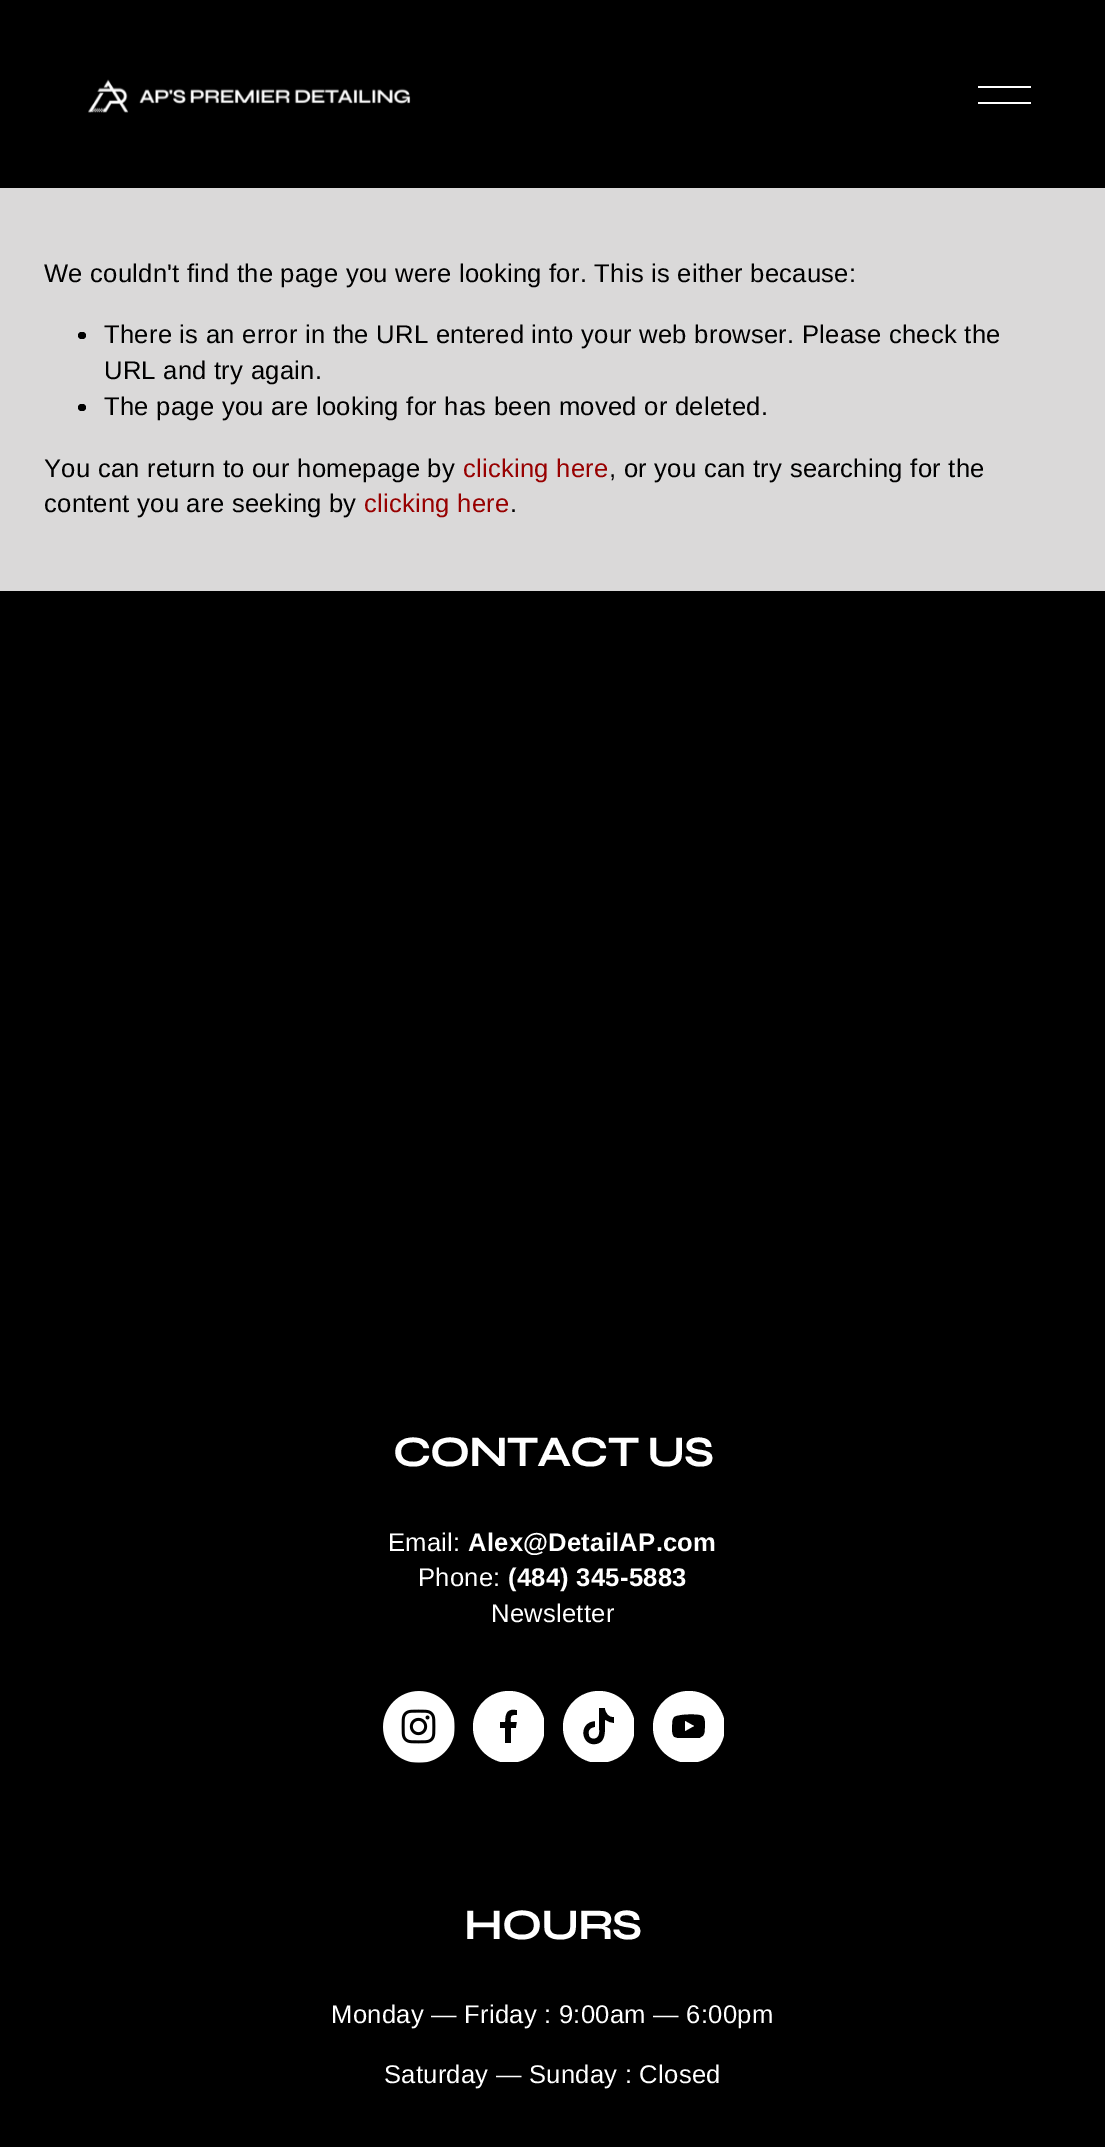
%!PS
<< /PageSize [1105 2147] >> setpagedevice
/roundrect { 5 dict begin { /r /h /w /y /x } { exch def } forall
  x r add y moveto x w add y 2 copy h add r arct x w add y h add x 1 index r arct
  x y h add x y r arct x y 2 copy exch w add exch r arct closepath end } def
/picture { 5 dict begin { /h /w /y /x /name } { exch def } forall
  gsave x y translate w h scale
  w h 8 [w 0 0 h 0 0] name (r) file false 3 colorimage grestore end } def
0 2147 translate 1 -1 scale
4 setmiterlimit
0.855 0.851 0.851 setrgbcolor
0 0 1105 2147 rectfill
0 setgray
0 0 1105 188 rectfill
(img1.rgb) 88 79 323 34 picture
1 setgray
978 86 53 2 rectfill
978 102 53 2 rectfill
/LiberationSans-Regular [25.6 0 0 -25.6 0 0] selectfont
0 setgray
44 282 moveto 0.25 0 (We couldn't find the page you were looking for. This is either because:) ashow
78 332 8 7 3.5 roundrect fill
104 343 moveto 0.25 0 (There is an error in the URL entered into your web browser. Please check the) ashow
104 379 moveto 0.25 0 (URL and try again.) ashow
78 404 8 7 3.5 roundrect fill
104 415 moveto 0.25 0 (The page you are looking for has been moved or deleted.) ashow
44 477 moveto 0.25 0 (You can return to our homepage by) ashow
0.596 0 0 setrgbcolor
463 477 moveto 0.25 0 (clicking here) ashow
0 setgray
609 477 moveto 0.25 0 (, or you can try searching for the) ashow
44 512 moveto 0.25 0 (content you are seeking by) ashow
0.596 0 0 setrgbcolor
364 512 moveto 0.25 0 (clicking here) ashow
0 setgray
510 512 moveto 0.25 0 (.) ashow
0 591 1105 1556 rectfill
/Syne-Bold [43.5 0 0 -43.5 0 0] selectfont
1 setgray
393 1466 moveto -1.25 0 (CONTACT US) ashow
/LiberationSans-Regular [25.6 0 0 -25.6 0 0] selectfont
388 1551 moveto 0.25 0 (Email:) ashow
/LiberationSans-Bold [25.6 0 0 -25.6 0 0] selectfont
468 1551 moveto 0.25 0 (Alex@DetailAP.com) ashow
/LiberationSans-Regular [25.6 0 0 -25.6 0 0] selectfont
418 1586 moveto 0.25 0 (Phone:) ashow
/LiberationSans-Bold [25.6 0 0 -25.6 0 0] selectfont
508 1586 moveto 0.25 0 (\(484\) 345-5883) ashow
/LiberationSans-Regular [25.6 0 0 -25.6 0 0] selectfont
491 1622 moveto 0.25 0 (Newsletter) ashow
(img2.rgb) 383 1691 72 72 picture
newpath 509 1691 moveto 489 1691 473 1707 473 1727 curveto 473 1744 485 1758 501 1762 curveto 517 1762 lineto 531 1759 541 1749 544 1735 curveto 544 1719 lineto 540 1703 526 1691 509 1691 curveto closepath 517 1715 moveto 517 1710 lineto 507 1708 505 1713 505 1722 curveto 500 1722 lineto 500 1728 lineto 505 1728 lineto 505 1743 lineto 511 1743 lineto 511 1728 lineto 516 1728 lineto 517 1722 lineto 511 1722 lineto 511 1717 510 1715 517 1715 curveto closepath eofill
newpath 599 1691 moveto 579 1691 563 1707 563 1727 curveto 563 1744 575 1758 591 1762 curveto 607 1762 lineto 621 1759 631 1749 634 1735 curveto 634 1719 lineto 630 1703 616 1691 599 1691 curveto closepath 614 1717 moveto 614 1723 lineto 611 1723 608 1722 605 1720 curveto 605 1728 607 1742 597 1744 curveto 581 1748 577 1722 595 1721 curveto 595 1727 lineto 592 1728 lineto 590 1729 588 1731 589 1734 curveto 589 1740 600 1741 599 1730 curveto 599 1708 lineto 605 1708 lineto 606 1714 609 1717 614 1717 curveto closepath eofill
newpath 689 1691 moveto 669 1691 653 1707 653 1727 curveto 653 1744 665 1758 681 1762 curveto 697 1762 lineto 711 1759 721 1749 724 1735 curveto 724 1719 lineto 720 1703 706 1691 689 1691 curveto closepath 705 1728 moveto 705 1725 706 1719 703 1716 curveto 700 1713 676 1714 674 1717 curveto 672 1719 672 1722 672 1725 curveto 672 1728 671 1734 674 1737 curveto 677 1738 lineto 700 1738 lineto 703 1736 lineto 705 1734 705 1731 705 1728 curveto closepath 685 1731 moveto 685 1721 lineto 694 1726 lineto closepath eofill
/Syne-Bold [43.5 0 0 -43.5 0 0] selectfont
464 1939 moveto -1.25 0 (HOURS) ashow
/LiberationSans-Regular [25.6 0 0 -25.6 0 0] selectfont
331 2023 moveto 0.25 0 (Monday — Friday : 9:00am — 6:00pm) ashow
384 2083 moveto 0.25 0 (Saturday — Sunday : Closed) ashow
showpage
